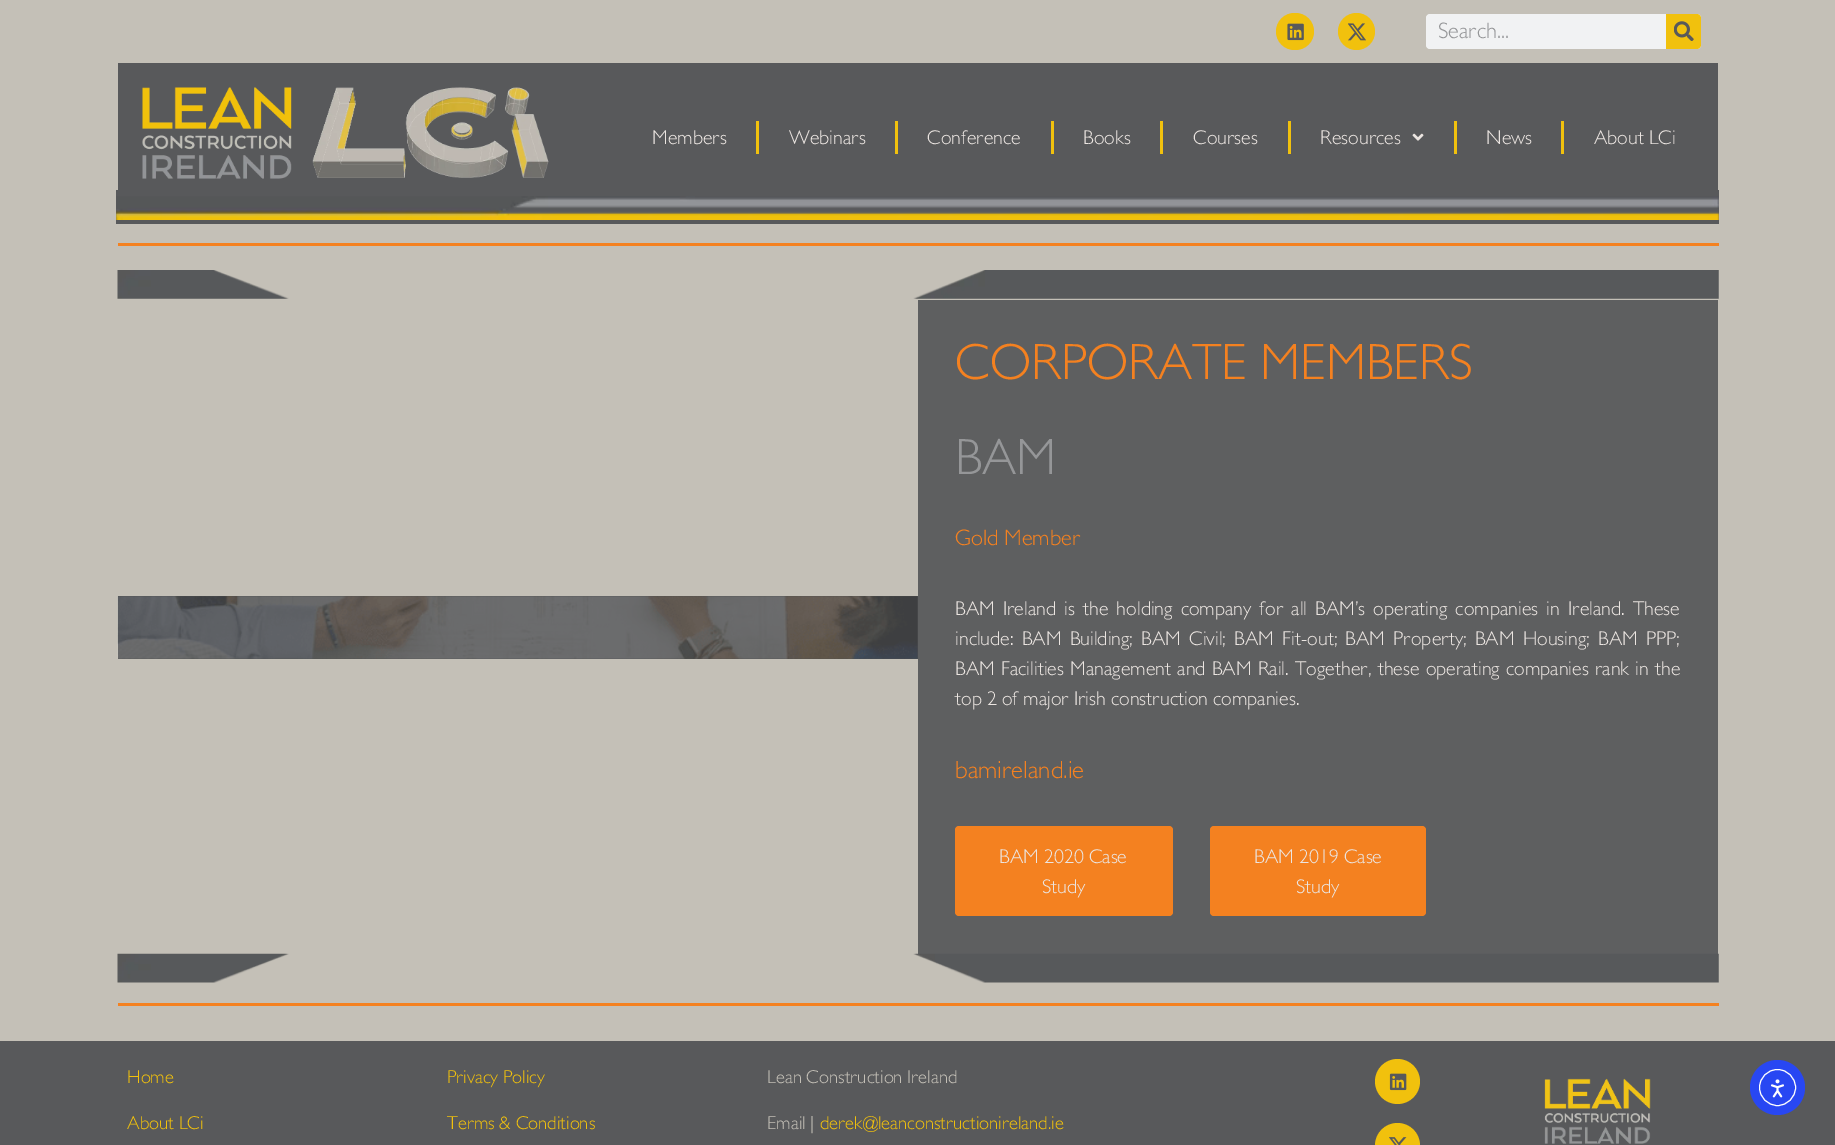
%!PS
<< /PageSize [1835 1145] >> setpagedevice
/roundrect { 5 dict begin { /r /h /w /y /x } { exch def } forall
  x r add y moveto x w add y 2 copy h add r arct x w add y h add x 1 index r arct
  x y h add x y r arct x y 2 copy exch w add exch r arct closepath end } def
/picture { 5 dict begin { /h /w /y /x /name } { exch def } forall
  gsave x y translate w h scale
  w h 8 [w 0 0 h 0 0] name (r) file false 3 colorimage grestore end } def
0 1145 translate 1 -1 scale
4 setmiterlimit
0.769 0.753 0.718 setrgbcolor
0 0 1835 1145 rectfill
0.945 0.757 0.051 setrgbcolor
1276 13 38 37 18.5 roundrect fill
(img1.rgb) 1287 23 17 18 picture
newpath 1356.5 31.5 18.5 0 360 arc closepath fill
(img2.rgb) 1348 23 18 18 picture
0.945 0.949 0.953 setrgbcolor
1426 14 275 35 4 roundrect fill
/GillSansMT-Light [22.5 0 0 -22.5 0 0] selectfont
0.584 0.588 0.596 setrgbcolor
1438 38 moveto (Search...) show
0.945 0.757 0.051 setrgbcolor
newpath 1666 14 moveto 1697 14 lineto 1699 14 1701 16 1701 18 curveto 1701 45 lineto 1701 47 1699 49 1697 49 curveto 1666 49 lineto closepath fill
(img3.rgb) 1674 21 20 20 picture
0.345 0.349 0.357 setrgbcolor
118 63 1600 127 rectfill
(img4.rgb) 142 87 407 92 picture
0.945 0.757 0.051 setrgbcolor
756 121 3 33 rectfill
/GillSansMT-Light [20 0 0 -20 0 0] selectfont
0.922 0.898 0.882 setrgbcolor
652 144 moveto (Members) show
0.945 0.757 0.051 setrgbcolor
895 121 3 33 rectfill
0.922 0.898 0.882 setrgbcolor
789 144 moveto (Webinars) show
0.945 0.757 0.051 setrgbcolor
1051 121 3 33 rectfill
0.922 0.898 0.882 setrgbcolor
927 144 moveto (Conference) show
0.945 0.757 0.051 setrgbcolor
1160 121 3 33 rectfill
0.922 0.898 0.882 setrgbcolor
1083 144 moveto (Books) show
0.945 0.757 0.051 setrgbcolor
1288 121 3 33 rectfill
0.922 0.898 0.882 setrgbcolor
1193 144 moveto (Courses) show
0.945 0.757 0.051 setrgbcolor
1454 121 3 33 rectfill
0.922 0.898 0.882 setrgbcolor
1320 144 moveto (Resources) show
(img5.rgb) 1412 133 12 8 picture
0.945 0.757 0.051 setrgbcolor
1561 121 3 33 rectfill
0.922 0.898 0.882 setrgbcolor
1486 144 moveto (News) show
1594 144 moveto (About LCi) show
0.345 0.349 0.357 setrgbcolor
116 190 1603 34 rectfill
(img6.rgb) 116 196 1603 24 picture
0.957 0.506 0.125 setrgbcolor
118 243 1601 3 rectfill
(img7.rgb) 117 270 1602 29 picture
0.298 0.302 0.31 setrgbcolor
118 596 800 63 rectfill
(img8.rgb) 117 596 801 63 picture
0.369 0.373 0.376 setrgbcolor
918 300 800 654 rectfill
/GillSansMT-Light [51.25 0 0 -51.25 0 0] selectfont
0.957 0.506 0.125 setrgbcolor
955 379 moveto (CORPORATE MEMBERS) show
0.584 0.588 0.596 setrgbcolor
955 474 moveto (BAM) show
/GillSansMT-Light [22.5 0 0 -22.5 0 0] selectfont
0.957 0.506 0.125 setrgbcolor
955 545 moveto (Gold Member) show
/GillSansMT-Light [20 0 0 -20 0 0] selectfont
0.922 0.898 0.882 setrgbcolor
955 615 moveto 3.1 0 32 (BAM Ireland is the holding company for all BAM’s operating companies in Ireland. These) widthshow
955 645 moveto 3.25 0 32 (include: BAM Building; BAM Civil; BAM Fit-out; BAM Property; BAM Housing; BAM PPP;) widthshow
955 675 moveto 1.25 0 32 (BAM Facilities Management and BAM Rail. Together, these operating companies rank in the) widthshow
955 705 moveto (top 2 of major Irish construction companies.) show
/GillSansMT-Light [25 0 0 -25 0 0] selectfont
0.957 0.506 0.125 setrgbcolor
955 778 moveto (bamireland.ie) show
955 826 218 90 4 roundrect fill
/GillSansMT-Light [20 0 0 -20 0 0] selectfont
0.922 0.898 0.882 setrgbcolor
999 863 moveto (BAM 2020 Case) show
1042 893 moveto (Study) show
0.957 0.506 0.125 setrgbcolor
1210 826 216 90 4 roundrect fill
0.922 0.898 0.882 setrgbcolor
1254 863 moveto (BAM 2019 Case) show
1296 893 moveto (Study) show
(img9.rgb) 117 953 1602 30 picture
0.957 0.506 0.125 setrgbcolor
118 1003 1601 3 rectfill
0.345 0.349 0.357 setrgbcolor
0 1041 1835 104 rectfill
/GillSansMT-Light [18.75 0 0 -18.75 0 0] selectfont
0.945 0.757 0.051 setrgbcolor
127 1083 moveto (Home) show
127 1129 moveto (About LCi) show
447 1083 moveto (Privacy Policy) show
447 1129 moveto (Terms & Conditions) show
0.769 0.753 0.718 setrgbcolor
767 1083 moveto (Lean Construction Ireland) show
767 1129 moveto (Email |) show
0.945 0.757 0.051 setrgbcolor
820 1129 moveto (derek@leanconstructionireland.ie) show
newpath 1397.5 1081.5 22.5 0 360 arc closepath fill
(img10.rgb) 1389 1073 18 18 picture
newpath 1397.5 1145.5 22.5 0 360 arc closepath fill
(img11.rgb) 1389 1137 18 8 picture
(img12.rgb) 1544 1078 107 66 picture
0.157 0.278 0.953 setrgbcolor
newpath 1777.5 1087.5 27.5 0 360 arc closepath fill
1 setgray
newpath 1777.5 1087.5 18 0 360 arc closepath stroke
(img13.rgb) 1770 1079 14 19 picture
showpage
